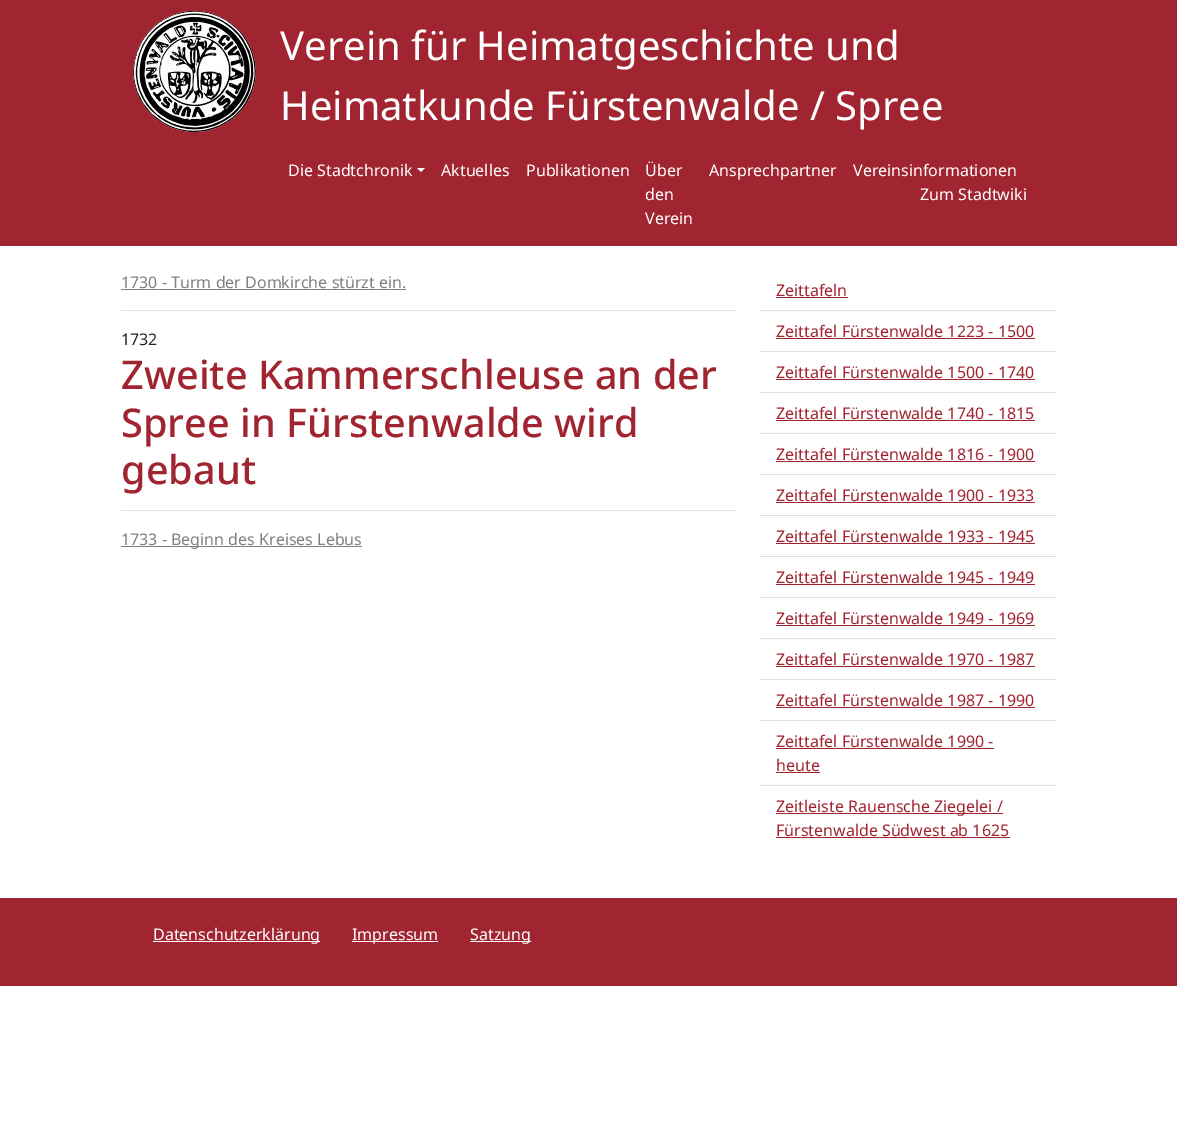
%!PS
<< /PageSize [1177 1131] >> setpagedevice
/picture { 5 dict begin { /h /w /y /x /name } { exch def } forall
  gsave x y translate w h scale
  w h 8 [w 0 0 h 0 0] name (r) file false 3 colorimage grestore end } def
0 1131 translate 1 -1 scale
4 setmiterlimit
1 setgray
0 0 1177 1131 rectfill
0.627 0.145 0.192 setrgbcolor
0 0 1177 246 rectfill
(img1.rgb) 133 11 123 121 picture
/NotoSans-Regular [40 0 0 -40 0 0] selectfont
1 setgray
280 60 moveto (Verein für Heimatgeschichte und) show
280 120 moveto (Heimatkunde Fürstenwalde / Spree) show
/NotoSans-Regular [16 0 0 -16 0 0] selectfont
288 176 moveto (Die Stadtchronik) show
newpath 417 168 moveto 425 168 lineto 421 172 lineto closepath fill
441 176 moveto (Aktuelles) show
526 176 moveto (Publikationen) show
645 176 moveto (Über) show
645 200 moveto (den) show
645 224 moveto (Verein) show
709 176 moveto (Ansprechpartner) show
853 176 moveto (Vereinsinformationen) show
920 200 moveto (Zum Stadtwiki) show
0.871 0.886 0.902 setrgbcolor
121 310 615 1 rectfill
0.502 setgray
121 288 moveto (1730 - Turm der Domkirche stürzt ein.) show
121 289 285 1 rectfill
0.129 0.145 0.161 setrgbcolor
121 345 moveto (1732) show
/NotoSans-Medium [39.7 0 0 -39.7 0 0] selectfont
0.627 0.145 0.192 setrgbcolor
121 389 moveto (Zweite Kammerschleuse an der) show
121 437 moveto (Spree in Fürstenwalde wird) show
121 484 moveto (gebaut) show
0.871 0.886 0.902 setrgbcolor
121 510 615 1 rectfill
0.502 setgray
121 546 241 1 rectfill
/NotoSans-Regular [16 0 0 -16 0 0] selectfont
121 545 moveto (1733 - Beginn des Kreises Lebus) show
0.875 setgray
760 310 296 1 rectfill
0.627 0.145 0.192 setrgbcolor
776 296 moveto (Zeittafeln) show
776 297 72 1 rectfill
0.875 setgray
760 351 296 1 rectfill
0.627 0.145 0.192 setrgbcolor
776 337 moveto (Zeittafel Fürstenwalde 1223 - 1500) show
776 338 259 1 rectfill
0.875 setgray
760 392 296 1 rectfill
0.627 0.145 0.192 setrgbcolor
776 378 moveto (Zeittafel Fürstenwalde 1500 - 1740) show
776 379 259 1 rectfill
0.875 setgray
760 433 296 1 rectfill
0.627 0.145 0.192 setrgbcolor
776 419 moveto (Zeittafel Fürstenwalde 1740 - 1815) show
776 420 259 1 rectfill
0.875 setgray
760 474 296 1 rectfill
0.627 0.145 0.192 setrgbcolor
776 460 moveto (Zeittafel Fürstenwalde 1816 - 1900) show
776 461 259 1 rectfill
0.875 setgray
760 515 296 1 rectfill
0.627 0.145 0.192 setrgbcolor
776 501 moveto (Zeittafel Fürstenwalde 1900 - 1933) show
776 502 259 1 rectfill
0.875 setgray
760 556 296 1 rectfill
0.627 0.145 0.192 setrgbcolor
776 542 moveto (Zeittafel Fürstenwalde 1933 - 1945) show
776 543 259 1 rectfill
0.875 setgray
760 597 296 1 rectfill
0.627 0.145 0.192 setrgbcolor
776 583 moveto (Zeittafel Fürstenwalde 1945 - 1949) show
776 584 259 1 rectfill
0.875 setgray
760 638 296 1 rectfill
0.627 0.145 0.192 setrgbcolor
776 624 moveto (Zeittafel Fürstenwalde 1949 - 1969) show
776 625 259 1 rectfill
0.875 setgray
760 679 296 1 rectfill
0.627 0.145 0.192 setrgbcolor
776 665 moveto (Zeittafel Fürstenwalde 1970 - 1987) show
776 666 259 1 rectfill
0.875 setgray
760 720 296 1 rectfill
0.627 0.145 0.192 setrgbcolor
776 706 moveto (Zeittafel Fürstenwalde 1987 - 1990) show
776 707 259 1 rectfill
0.875 setgray
760 785 296 1 rectfill
0.627 0.145 0.192 setrgbcolor
776 747 moveto (Zeittafel Fürstenwalde 1990 -) show
776 748 218 1 rectfill
776 771 moveto (heute) show
776 772 44 1 rectfill
776 813 227 1 rectfill
776 812 moveto (Zeitleiste Rauensche Ziegelei /) show
776 836 moveto (Fürstenwalde Südwest ab 1625) show
776 837 234 1 rectfill
0 898 1177 88 rectfill
1 setgray
153 941 167 1 rectfill
153 940 moveto (Datenschutzerklärung) show
352 941 86 1 rectfill
352 940 moveto (Impressum) show
470 941 61 1 rectfill
470 940 moveto (Satzung) show
showpage
